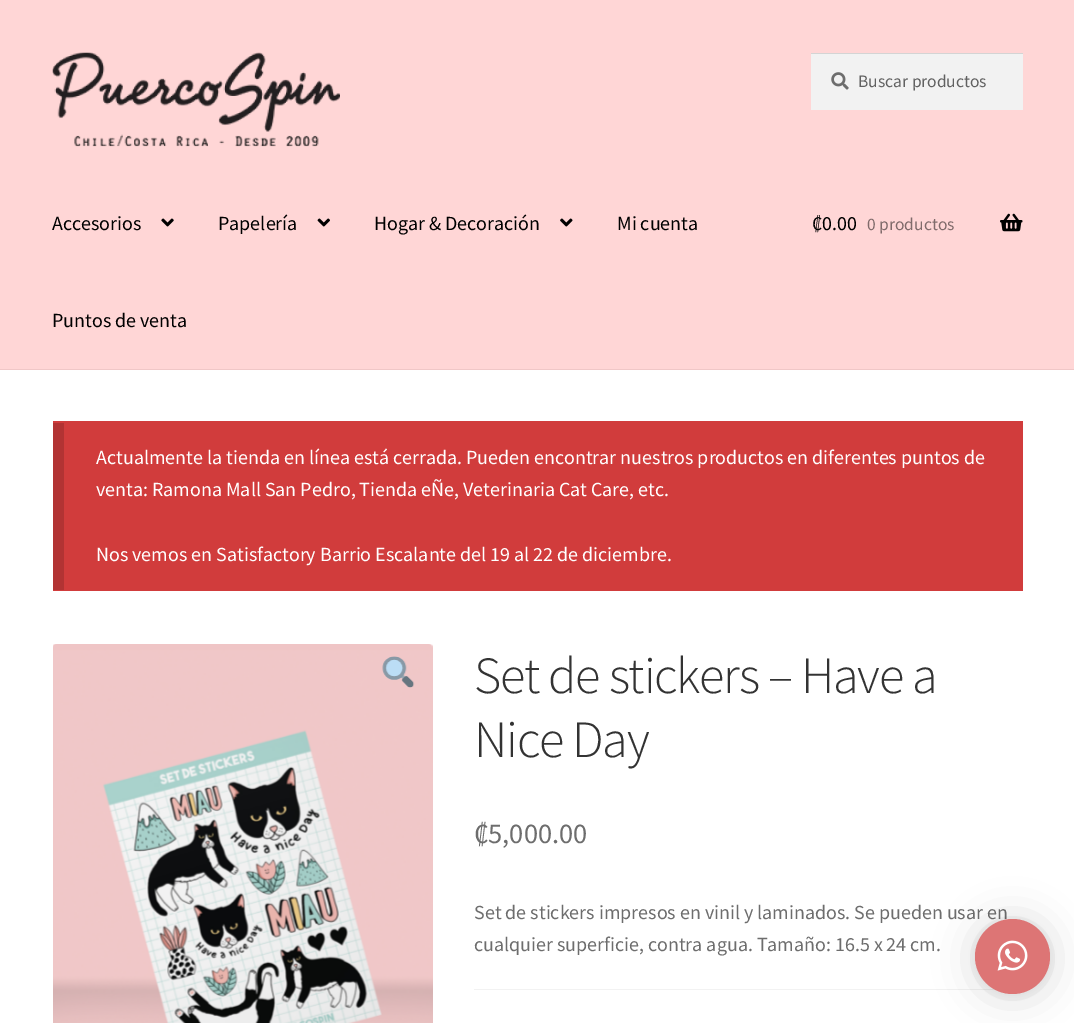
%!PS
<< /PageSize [1074 1023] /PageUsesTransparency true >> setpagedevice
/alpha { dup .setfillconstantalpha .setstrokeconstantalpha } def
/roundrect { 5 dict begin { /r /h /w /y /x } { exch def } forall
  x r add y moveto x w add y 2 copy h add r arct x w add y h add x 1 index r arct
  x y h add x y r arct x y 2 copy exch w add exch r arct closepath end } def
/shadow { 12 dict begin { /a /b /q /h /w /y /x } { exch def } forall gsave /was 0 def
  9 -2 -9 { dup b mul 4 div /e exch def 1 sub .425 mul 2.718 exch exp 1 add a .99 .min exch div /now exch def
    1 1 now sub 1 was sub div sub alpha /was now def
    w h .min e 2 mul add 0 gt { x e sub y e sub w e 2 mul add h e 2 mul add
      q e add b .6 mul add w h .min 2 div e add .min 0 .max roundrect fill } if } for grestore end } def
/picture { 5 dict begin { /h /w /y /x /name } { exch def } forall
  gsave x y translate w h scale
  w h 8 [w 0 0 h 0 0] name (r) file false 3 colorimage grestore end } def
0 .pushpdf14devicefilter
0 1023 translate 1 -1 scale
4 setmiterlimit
1 setgray
0 0 1074 1023 rectfill
1 0.839 0.839 setrgbcolor
0 0 1074 369 rectfill
0.941 0.78 0.78 setrgbcolor
0 369 1074 1 rectfill
(img1.rgb) 52 52 288 95 picture
0.949 setgray
811 54 212 56 rectfill
(img2.rgb) 831 72 18 18 picture
0.831 setgray
811 53 212 1 rectfill
/SourceSansPro-Regular [17.5 0 0 -17.5 0 0] selectfont
0.38 setgray
858 87 moveto (Buscar productos) show
/SourceSansPro-Regular [20 0 0 -20 0 0] selectfont
0 setgray
52 230 moveto (Accesorios) show
(img3.rgb) 161 218 13 9 picture
218 230 moveto (Papelería) show
(img4.rgb) 317 218 13 9 picture
374 230 moveto (Hogar & Decoración) show
(img5.rgb) 560 218 13 9 picture
617 230 moveto (Mi cuenta) show
52 327 moveto (Puntos de venta) show
812 230 moveto (₡0.00) show
/SourceSansPro-Regular [17.5 0 0 -17.5 0 0] selectfont
0.502 0.42 0.42 setrgbcolor
867 230 moveto (0 productos) show
(img6.rgb) 1000 213 23 19 picture
0.82 0.235 0.235 setrgbcolor
53 421 970 170 rectfill
0.698 0.2 0.2 setrgbcolor
53 423 11 167 rectfill
/SourceSansPro-Regular [20 0 0 -20 0 0] selectfont
1 setgray
96 464 moveto (Actualmente la tienda en línea está cerrada. Pueden encontrar nuestros productos en diferentes puntos de) show
96 496 moveto (venta: Ramona Mall San Pedro, Tienda eÑe, Veterinaria Cat Care, etc.) show
96 561 moveto (Nos vemos en Satisfactory Barrio Escalante del 19 al 22 de diciembre.) show
(img7.rgb) 53 644 380 379 picture
(img8.rgb) 382 656 33 32 picture
/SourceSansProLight-Light [52.25 0 0 -52.25 0 0] selectfont
0.2 setgray
474 693 moveto -1.25 0 (Set de stickers – Have a) ashow
474 757 moveto -1.25 0 (Nice Day) ashow
/SourceSansPro-Regular [28.5 0 0 -28.5 0 0] selectfont
0.427 setgray
474 843 moveto (₡5,000.00) show
/SourceSansPro-Regular [20 0 0 -20 0 0] selectfont
474 919 moveto (Set de stickers impresos en vinil y laminados. Se pueden usar en) show
474 951 moveto (cualquier superficie, contra agua. Tamaño: 16.5 x 24 cm.) show
0.949 setgray
474 989 522 1 rectfill
0 setgray
975 921 75 75 37.5 20 0.16 shadow
975 920 75 75 37.5 4 0.06 shadow
0.867 0.459 0.459 setrgbcolor
newpath 1012.5 956.5 37.5 0 360 arc closepath fill
(img9.rgb) 997 940 31 31 picture
.poppdf14devicefilter showpage
